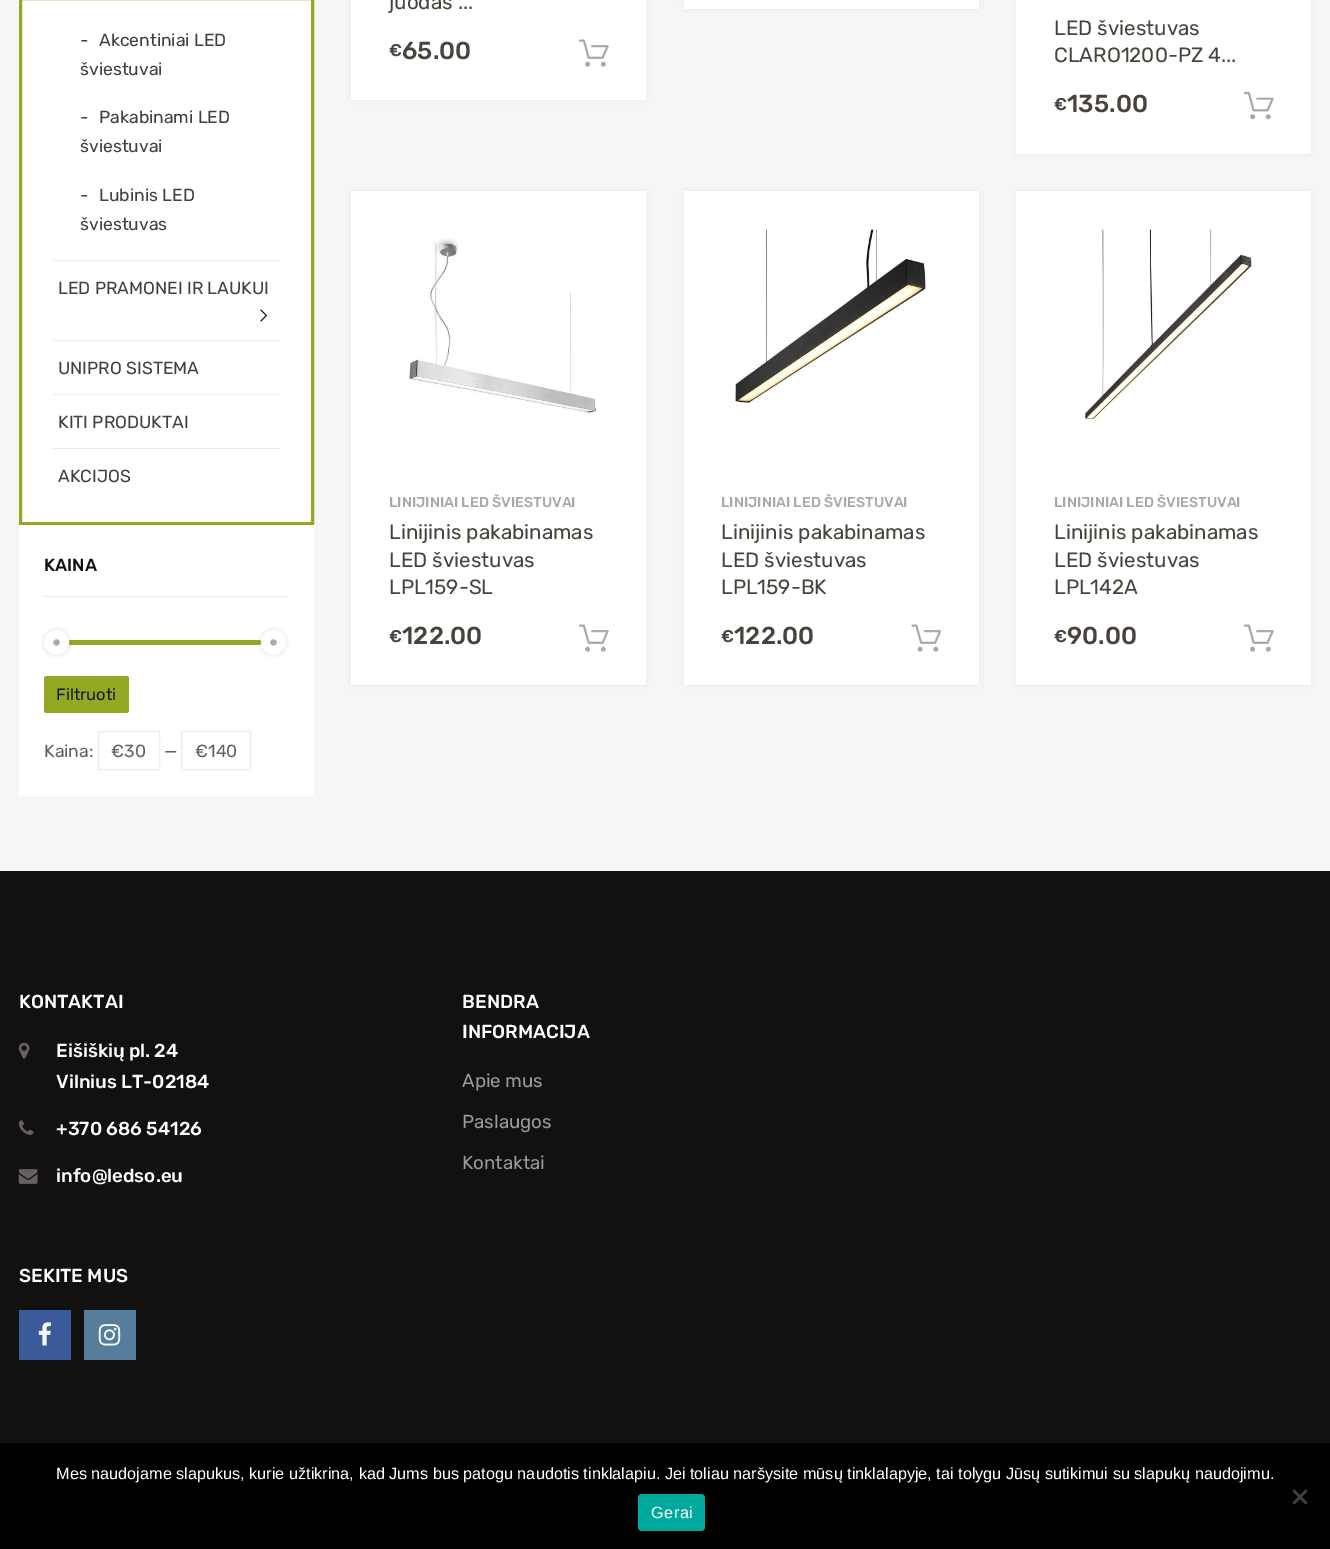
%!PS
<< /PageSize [1330 1549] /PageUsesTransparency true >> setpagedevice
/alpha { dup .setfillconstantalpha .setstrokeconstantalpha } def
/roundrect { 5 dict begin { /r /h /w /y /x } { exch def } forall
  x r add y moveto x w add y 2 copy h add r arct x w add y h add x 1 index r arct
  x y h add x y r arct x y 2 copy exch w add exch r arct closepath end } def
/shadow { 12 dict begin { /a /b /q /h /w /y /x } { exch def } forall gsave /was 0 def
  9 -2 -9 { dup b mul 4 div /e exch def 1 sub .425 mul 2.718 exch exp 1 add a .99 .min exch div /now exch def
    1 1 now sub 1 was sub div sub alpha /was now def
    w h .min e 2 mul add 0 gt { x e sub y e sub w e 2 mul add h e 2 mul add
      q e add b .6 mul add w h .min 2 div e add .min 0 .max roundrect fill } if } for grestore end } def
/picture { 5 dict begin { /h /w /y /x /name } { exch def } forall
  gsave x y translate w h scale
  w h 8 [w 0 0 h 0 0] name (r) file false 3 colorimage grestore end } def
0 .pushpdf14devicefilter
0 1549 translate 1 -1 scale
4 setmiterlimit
0.965 setgray
0 0 1330 1549 rectfill
1 setgray
newpath 20.5 -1.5 moveto 312.5 -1.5 lineto 312.5 523.5 lineto 20.5 523.5 lineto closepath gsave fill grestore
0.584 0.659 0.137 setrgbcolor
3 setlinewidth
stroke
0.922 setgray
53 260 227 1 rectfill
/Rubik-Regular [17.5 0 0 -17.5 0 0] selectfont
0.239 0.259 0.271 setrgbcolor
80 46 moveto (-) show
99 46 moveto (Akcentiniai LED) show
80 75 moveto (šviestuvai) show
80 123 moveto (-) show
99 123 moveto (Pakabinami LED) show
80 152 moveto (šviestuvai) show
80 201 moveto (-) show
99 201 moveto (Lubinis LED) show
80 230 moveto (šviestuvas) show
0.922 setgray
53 340 227 1 rectfill
0.239 0.259 0.271 setrgbcolor
58 294 moveto (LED PRAMONEI IR LAUKUI) show
(img1.rgb) 260 309 8 13 picture
0.922 setgray
53 394 227 1 rectfill
0.239 0.259 0.271 setrgbcolor
58 374 moveto (UNIPRO SISTEMA) show
0.922 setgray
53 448 227 1 rectfill
0.239 0.259 0.271 setrgbcolor
58 428 moveto (KITI PRODUKTAI) show
58 482 moveto (AKCIJOS) show
1 setgray
19 525 295 271 rectfill
0.922 setgray
44 596 245 1 rectfill
/Rubik-Medium [17.5 0 0 -17.5 0 0] selectfont
0.071 0.067 0.059 setrgbcolor
44 571 moveto (KAINA) show
0.965 setgray
44 640 217 5 rectfill
0.584 0.659 0.137 setrgbcolor
44 640 217 5 2.5 roundrect fill
0 setgray
44 630 25 25 12.5 2 0.15 shadow
0.62 0.678 0.714 setrgbcolor
newpath 56.5 642.5 8 0 360 arc closepath gsave fill grestore
1 setgray
9 setlinewidth
stroke
0 setgray
261 630 25 25 12.5 2 0.15 shadow
0.62 0.678 0.714 setrgbcolor
newpath 273.5 642.5 8 0 360 arc closepath gsave fill grestore
1 setgray
stroke
0.584 0.659 0.137 setrgbcolor
44 676 85 37 2.5 roundrect fill
/Rubik-Regular [16.5 0 0 -16.5 0 0] selectfont
0.075 0.098 0.118 setrgbcolor
56 700 moveto (Filtruoti) show
/Rubik-Regular [17.5 0 0 -17.5 0 0] selectfont
0.384 setgray
44 757 moveto (Kaina:) show
0.922 setgray
1 setlinewidth
98.5 731.5 61 38 rectstroke
0.384 setgray
111 757 moveto (€30) show
164 757 moveto (—) show
0.922 setgray
181.5 731.5 69 38 rectstroke
0.384 setgray
195 757 moveto (€140) show
0 setgray
351 -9 295 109 0 3 0.05 shadow
1 setgray
351 0 295 100 rectfill
/Rubik-Regular [20.6 0 0 -20.6 0 0] selectfont
0.282 0.267 0.235 setrgbcolor
389 9 moveto (juodas ...) show
/Rubik-Medium [17 0 0 -17 0 0] selectfont
389 56 moveto (€) show
/Rubik-Medium [24.5 0 0 -24.5 0 0] selectfont
402 59 moveto (65.00) show
(img2.rgb) 579 39 30 28 picture
0 setgray
684 -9 295 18 0 3 0.05 shadow
1 setgray
684 0 295 9 rectfill
0 setgray
1016 -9 295 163 0 3 0.05 shadow
1 setgray
1016 0 295 154 rectfill
/Rubik-Regular [20.6 0 0 -20.6 0 0] selectfont
0.282 0.267 0.235 setrgbcolor
1054 35 moveto (LED šviestuvas) show
1054 62 moveto (CLARO1200-PZ 4...) show
/Rubik-Medium [17 0 0 -17 0 0] selectfont
1054 110 moveto (€) show
/Rubik-Medium [24.5 0 0 -24.5 0 0] selectfont
1067 112 moveto (135.00) show
(img3.rgb) 1244 92 30 28 picture
0 setgray
351 191 295 494 0 3 0.05 shadow
1 setgray
351 191 295 494 rectfill
(img4.rgb) 408 238 188 175 picture
/Rubik-Medium [14.3 0 0 -14.3 0 0] selectfont
0.663 setgray
389 507 moveto (LINIJINIAI LED ŠVIESTUVAI) show
/Rubik-Regular [20.6 0 0 -20.6 0 0] selectfont
0.282 0.267 0.235 setrgbcolor
389 539 moveto (Linijinis pakabinamas) show
389 567 moveto (LED šviestuvas) show
389 594 moveto (LPL159-SL) show
/Rubik-Medium [17 0 0 -17 0 0] selectfont
389 642 moveto (€) show
/Rubik-Medium [24.5 0 0 -24.5 0 0] selectfont
402 644 moveto (122.00) show
(img2.rgb) 579 624 30 28 picture
0 setgray
684 191 295 494 0 3 0.05 shadow
1 setgray
684 191 295 494 rectfill
(img5.rgb) 735 229 192 175 picture
/Rubik-Medium [14.3 0 0 -14.3 0 0] selectfont
0.663 setgray
721 507 moveto (LINIJINIAI LED ŠVIESTUVAI) show
/Rubik-Regular [20.6 0 0 -20.6 0 0] selectfont
0.282 0.267 0.235 setrgbcolor
721 539 moveto (Linijinis pakabinamas) show
721 567 moveto (LED šviestuvas) show
721 594 moveto (LPL159-BK) show
/Rubik-Medium [17 0 0 -17 0 0] selectfont
721 642 moveto (€) show
/Rubik-Medium [24.5 0 0 -24.5 0 0] selectfont
734 644 moveto (122.00) show
(img6.rgb) 911 624 30 28 picture
0 setgray
1016 191 295 494 0 3 0.05 shadow
1 setgray
1016 191 295 494 rectfill
(img7.rgb) 1085 229 167 192 picture
/Rubik-Medium [14.3 0 0 -14.3 0 0] selectfont
0.663 setgray
1054 507 moveto (LINIJINIAI LED ŠVIESTUVAI) show
/Rubik-Regular [20.6 0 0 -20.6 0 0] selectfont
0.282 0.267 0.235 setrgbcolor
1054 539 moveto (Linijinis pakabinamas) show
1054 567 moveto (LED šviestuvas) show
1054 594 moveto (LPL142A) show
/Rubik-Medium [17 0 0 -17 0 0] selectfont
1054 642 moveto (€) show
/Rubik-Medium [24.5 0 0 -24.5 0 0] selectfont
1067 644 moveto (90.00) show
(img2.rgb) 1244 624 30 28 picture
0.071 0.067 0.059 setrgbcolor
0 871 1330 572 rectfill
/Rubik-Medium [18.75 0 0 -18.75 0 0] selectfont
1 setgray
19 1008 moveto (KONTAKTAI) show
(img8.rgb) 18 1042 12 17 picture
56 1057 moveto (Eišiškių pl. 24) show
56 1088 moveto (Vilnius LT-02184) show
(img9.rgb) 18 1120 16 15 picture
56 1135 moveto (+370 686 54126) show
(img10.rgb) 18 1169 20 15 picture
56 1182 moveto (info@ledso.eu) show
19 1282 moveto (SEKITE MUS) show
0.231 0.353 0.604 setrgbcolor
19 1310 52 50 rectfill
(img11.rgb) 38 1322 13 24 picture
0.337 0.49 0.612 setrgbcolor
84 1310 52 50 rectfill
(img12.rgb) 98 1324 23 22 picture
1 setgray
462 1008 moveto (BENDRA) show
462 1038 moveto (INFORMACIJA) show
/Rubik-Regular [18.75 0 0 -18.75 0 0] selectfont
0.604 setgray
462 1087 moveto (Apie mus) show
462 1128 moveto (Paslaugos) show
462 1169 moveto (Kontaktai) show
0 setgray
0 1443 1330 106 rectfill
/LiberationSans-Regular [16.25 0 0 -16.25 0 0] selectfont
1 setgray
56 1479 moveto (Mes naudojame slapukus, kurie užtikrina, kad Jums bus patogu naudotis tinklalapiu. Jei toliau naršysite mūsų tinklalapyje, tai tolygu Jūsų sutikimui su slapukų naudojimu.) show
0.251 setgray
newpath 1305.5 1489.5 moveto 1307.5 1491 lineto 1294.5 1504.5 lineto 1292.5 1502.5 lineto closepath fill
newpath 1292.5 1491 moveto 1294.5 1489.5 lineto 1307.5 1502.5 lineto 1305.5 1504.5 lineto closepath fill
0 0.663 0.616 setrgbcolor
638 1494 67 37 4 roundrect fill
1 setgray
651 1518 moveto 0.5 0 (Gerai) ashow
.poppdf14devicefilter showpage
